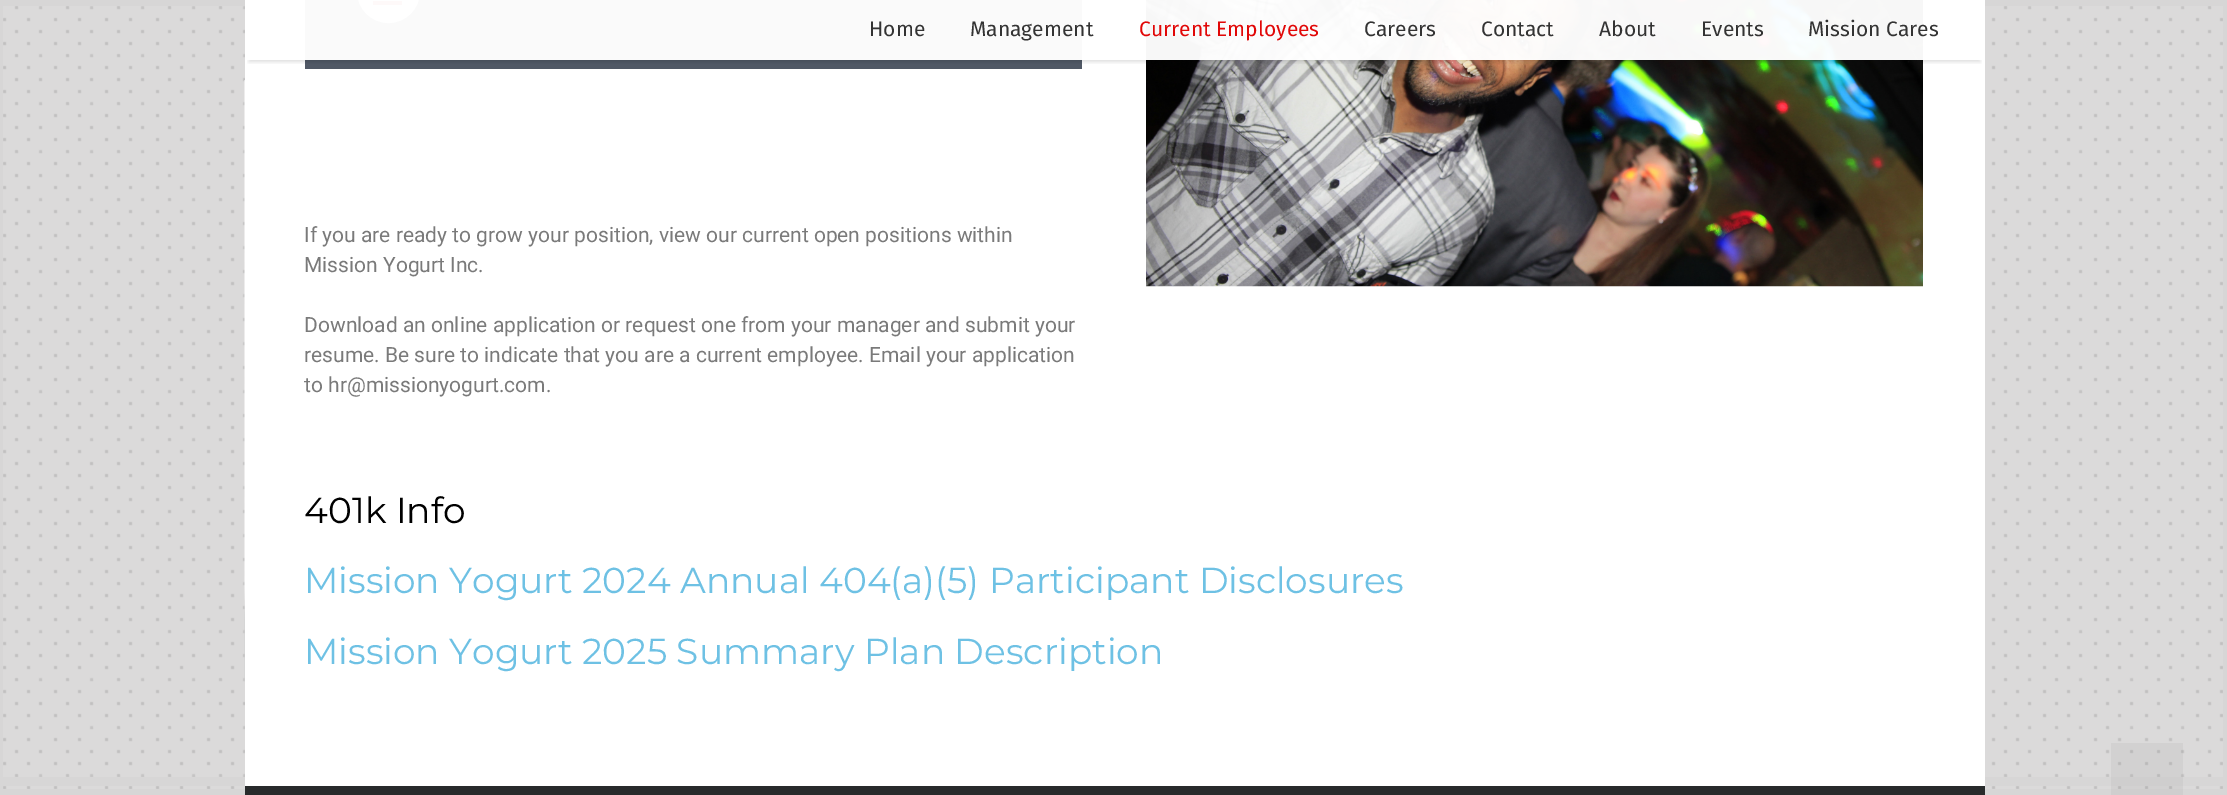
%!PS
<< /PageSize [2227 795] /PageUsesTransparency true >> setpagedevice
/alpha { dup .setfillconstantalpha .setstrokeconstantalpha } def
/roundrect { 5 dict begin { /r /h /w /y /x } { exch def } forall
  x r add y moveto x w add y 2 copy h add r arct x w add y h add x 1 index r arct
  x y h add x y r arct x y 2 copy exch w add exch r arct closepath end } def
/shadow { 12 dict begin { /a /b /q /h /w /y /x } { exch def } forall gsave /was 0 def
  9 -2 -9 { dup b mul 4 div /e exch def 1 sub .425 mul 2.718 exch exp 1 add a .99 .min exch div /now exch def
    1 1 now sub 1 was sub div sub alpha /was now def
    w h .min e 2 mul add 0 gt { x e sub y e sub w e 2 mul add h e 2 mul add
      q e add b .6 mul add w h .min 2 div e add .min 0 .max roundrect fill } if } for grestore end } def
/picture { 5 dict begin { /h /w /y /x /name } { exch def } forall
  gsave x y translate w h scale
  w h 8 [w 0 0 h 0 0] name (r) file false 3 colorimage grestore end } def
0 .pushpdf14devicefilter
0 795 translate 1 -1 scale
4 setmiterlimit
0.843 0.839 0.839 setrgbcolor
0 0 2227 795 rectfill
(img1.rgb) 3 786 2220 3 picture
(img2.rgb) 3 6 2220 771 picture
1 setgray
245 0 1740 786 rectfill
(img4.rgb) 1146 0 777 287 picture
0.314 0.345 0.396 setrgbcolor
305 0 777 69 rectfill
1 setgray
358 -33 61 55 30.5 roundrect gsave fill grestore
2 setlinewidth
stroke
0.867 0.2 0.2 setrgbcolor
373 1 29 4 rectfill
gsave
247 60 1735 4 rectclip
0 setgray
249 11 1731 51 0 2 0.12 shadow
grestore
0.97 alpha
1 setgray
305 0 1618 60 rectfill
/FiraSans-Regular [21 0 0 -21 0 0] selectfont
1 alpha
0.2 setgray
869 36 moveto (Home) show
970 36 moveto (Management) show
0.882 0.027 0.027 setrgbcolor
1139 36 moveto (Current Employees) show
0.2 setgray
1364 36 moveto (Careers) show
1481 36 moveto (Contact) show
1599 36 moveto (About) show
1701 36 moveto (Events) show
1808 36 moveto (Mission Cares) show
(img3.rgb) 244 80 1 601 picture
0.157 0.165 0.169 setrgbcolor
245 786 1740 9 rectfill
/Roboto-Regular [21 0 0 -21 0 0] selectfont
0.478 setgray
304 242 moveto (If you are ready to grow your position, view our current open positions within) show
304 272 moveto (Mission Yogurt Inc.) show
304 332 moveto (Download an online application or request one from your manager and submit your) show
304 362 moveto (resume. Be sure to indicate that you are a current employee. Email your application) show
304 392 moveto (to hr@missionyogurt.com.) show
/Montserrat-Thin [36 0 0 -36 0 0] selectfont
0 setgray
304 523 moveto (401k Info) show
0.431 0.757 0.894 setrgbcolor
304 593 moveto (Mission Yogurt 2024 Annual 404\(a\)\(5\) Participant Disclosures) show
304 664 moveto (Mission Yogurt 2025 Summary Plan Description) show
0.05 alpha
0.2 setgray
2111 743 72 52 rectfill
.poppdf14devicefilter showpage
